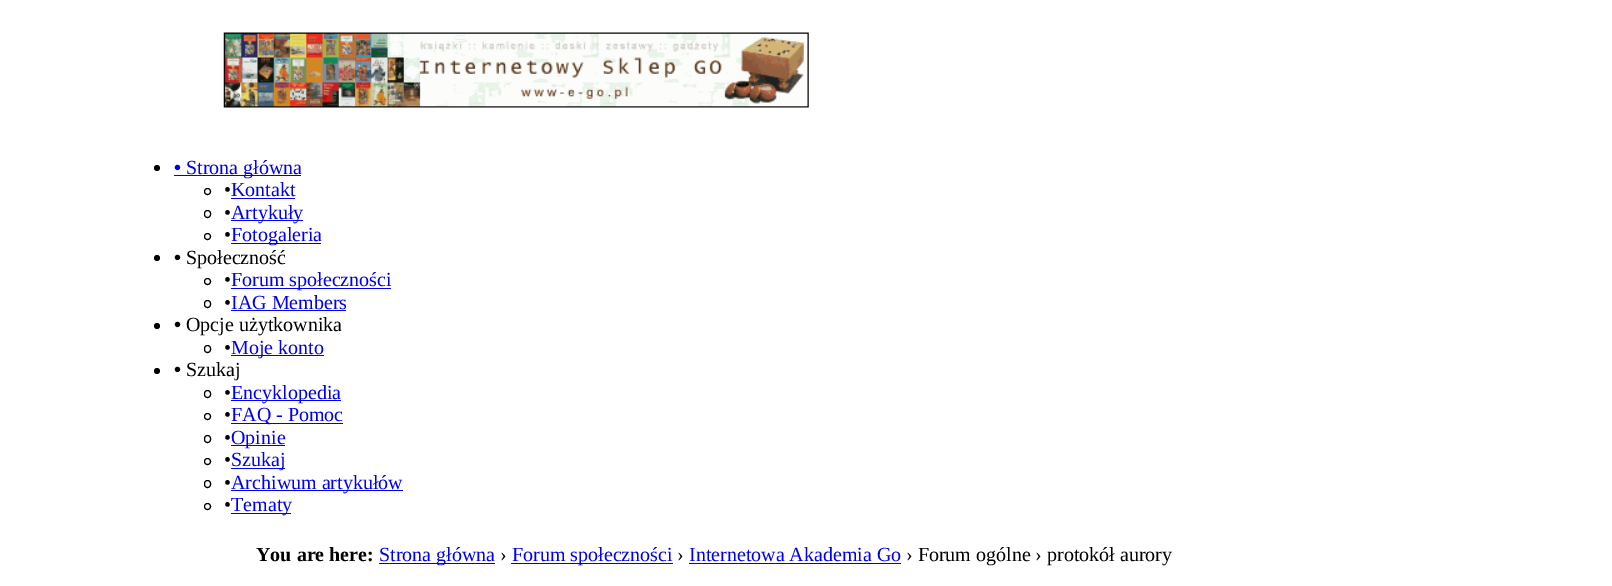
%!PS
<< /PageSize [1612 586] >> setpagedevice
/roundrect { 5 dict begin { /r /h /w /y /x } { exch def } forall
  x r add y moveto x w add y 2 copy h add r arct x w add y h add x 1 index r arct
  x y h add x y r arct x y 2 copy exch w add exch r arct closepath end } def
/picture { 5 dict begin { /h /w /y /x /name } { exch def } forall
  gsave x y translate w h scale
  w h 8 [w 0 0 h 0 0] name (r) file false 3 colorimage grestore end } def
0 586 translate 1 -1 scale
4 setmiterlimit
1 setgray
0 0 1612 586 rectfill
(img1.rgb) 223 32 586 76 picture
0 setgray
newpath 157 168 3 0 360 arc closepath fill
/LiberationSerif-Bold [20 0 0 -20 0 0] selectfont
0 0 0.933 setrgbcolor
174 174 moveto (•) show
174 175 127 1 rectfill
/LiberationSerif-Regular [20 0 0 -20 0 0] selectfont
186 174 moveto (Strona główna) show
0 setgray
newpath 207.5 191.5 3 0 360 arc closepath stroke
224 196 moveto (•) show
0 0 0.933 setrgbcolor
231 196 moveto (Kontakt) show
231 198 64 1 rectfill
0 setgray
204.5 210.5 6 7 3 roundrect stroke
224 219 moveto (•) show
0 0 0.933 setrgbcolor
231 220 72 1 rectfill
231 219 moveto (Artykuły) show
0 setgray
newpath 207.5 236.5 3 0 360 arc closepath stroke
224 241 moveto (•) show
0 0 0.933 setrgbcolor
231 243 90 1 rectfill
231 241 moveto (Fotogaleria) show
0 setgray
newpath 157 258 3 0 360 arc closepath fill
/LiberationSerif-Bold [20 0 0 -20 0 0] selectfont
174 264 moveto (•) show
/LiberationSerif-Regular [20 0 0 -20 0 0] selectfont
186 264 moveto (Społeczność) show
newpath 207.5 281.5 3 0 360 arc closepath stroke
224 286 moveto (•) show
0 0 0.933 setrgbcolor
231 288 160 1 rectfill
231 286 moveto (Forum społeczności) show
0 setgray
204.5 300.5 6 7 3 roundrect stroke
224 309 moveto (•) show
0 0 0.933 setrgbcolor
231 309 moveto (IAG Members) show
231 310 115 1 rectfill
0 setgray
newpath 157 326 3 0 360 arc closepath fill
/LiberationSerif-Bold [20 0 0 -20 0 0] selectfont
174 331 moveto (•) show
/LiberationSerif-Regular [20 0 0 -20 0 0] selectfont
186 331 moveto (Opcje użytkownika) show
204.5 345.5 6 7 3 roundrect stroke
224 354 moveto (•) show
0 0 0.933 setrgbcolor
231 355 93 1 rectfill
231 354 moveto (Moje konto) show
0 setgray
newpath 157 371 3 0 360 arc closepath fill
/LiberationSerif-Bold [20 0 0 -20 0 0] selectfont
174 376 moveto (•) show
/LiberationSerif-Regular [20 0 0 -20 0 0] selectfont
186 376 moveto (Szukaj) show
204.5 390.5 6 7 3 roundrect stroke
224 399 moveto (•) show
0 0 0.933 setrgbcolor
231 400 110 1 rectfill
231 399 moveto (Encyklopedia) show
0 setgray
newpath 207.5 416.5 3 0 360 arc closepath stroke
224 421 moveto (•) show
0 0 0.933 setrgbcolor
231 423 112 1 rectfill
231 421 moveto (FAQ - Pomoc) show
0 setgray
204.5 435.5 6 7 3 roundrect stroke
224 444 moveto (•) show
0 0 0.933 setrgbcolor
231 445 54 1 rectfill
231 444 moveto (Opinie) show
0 setgray
newpath 207.5 461.5 3 0 360 arc closepath stroke
224 466 moveto (•) show
0 0 0.933 setrgbcolor
231 468 54 1 rectfill
231 466 moveto (Szukaj) show
0 setgray
204.5 480.5 6 7 3 roundrect stroke
224 489 moveto (•) show
0 0 0.933 setrgbcolor
231 490 172 1 rectfill
231 489 moveto (Archiwum artykułów) show
0 setgray
newpath 207.5 506.5 3 0 360 arc closepath stroke
224 511 moveto (•) show
0 0 0.933 setrgbcolor
231 513 60 1 rectfill
231 511 moveto (Tematy) show
/LiberationSerif-Bold [20 0 0 -20 0 0] selectfont
0 setgray
256 561 moveto (You are here:) show
0 0 0.933 setrgbcolor
379 563 116 1 rectfill
/LiberationSerif-Regular [20 0 0 -20 0 0] selectfont
379 561 moveto (Strona główna) show
0 setgray
500 561 moveto (›) show
0 0 0.933 setrgbcolor
511 563 162 1 rectfill
512 561 moveto (Forum społeczności) show
0 setgray
677 561 moveto (›) show
0 0 0.933 setrgbcolor
689 561 moveto (Internetowa Akademia Go) show
689 563 212 1 rectfill
0 setgray
906 561 moveto (› Forum ogólne › protokół aurory) show
showpage
